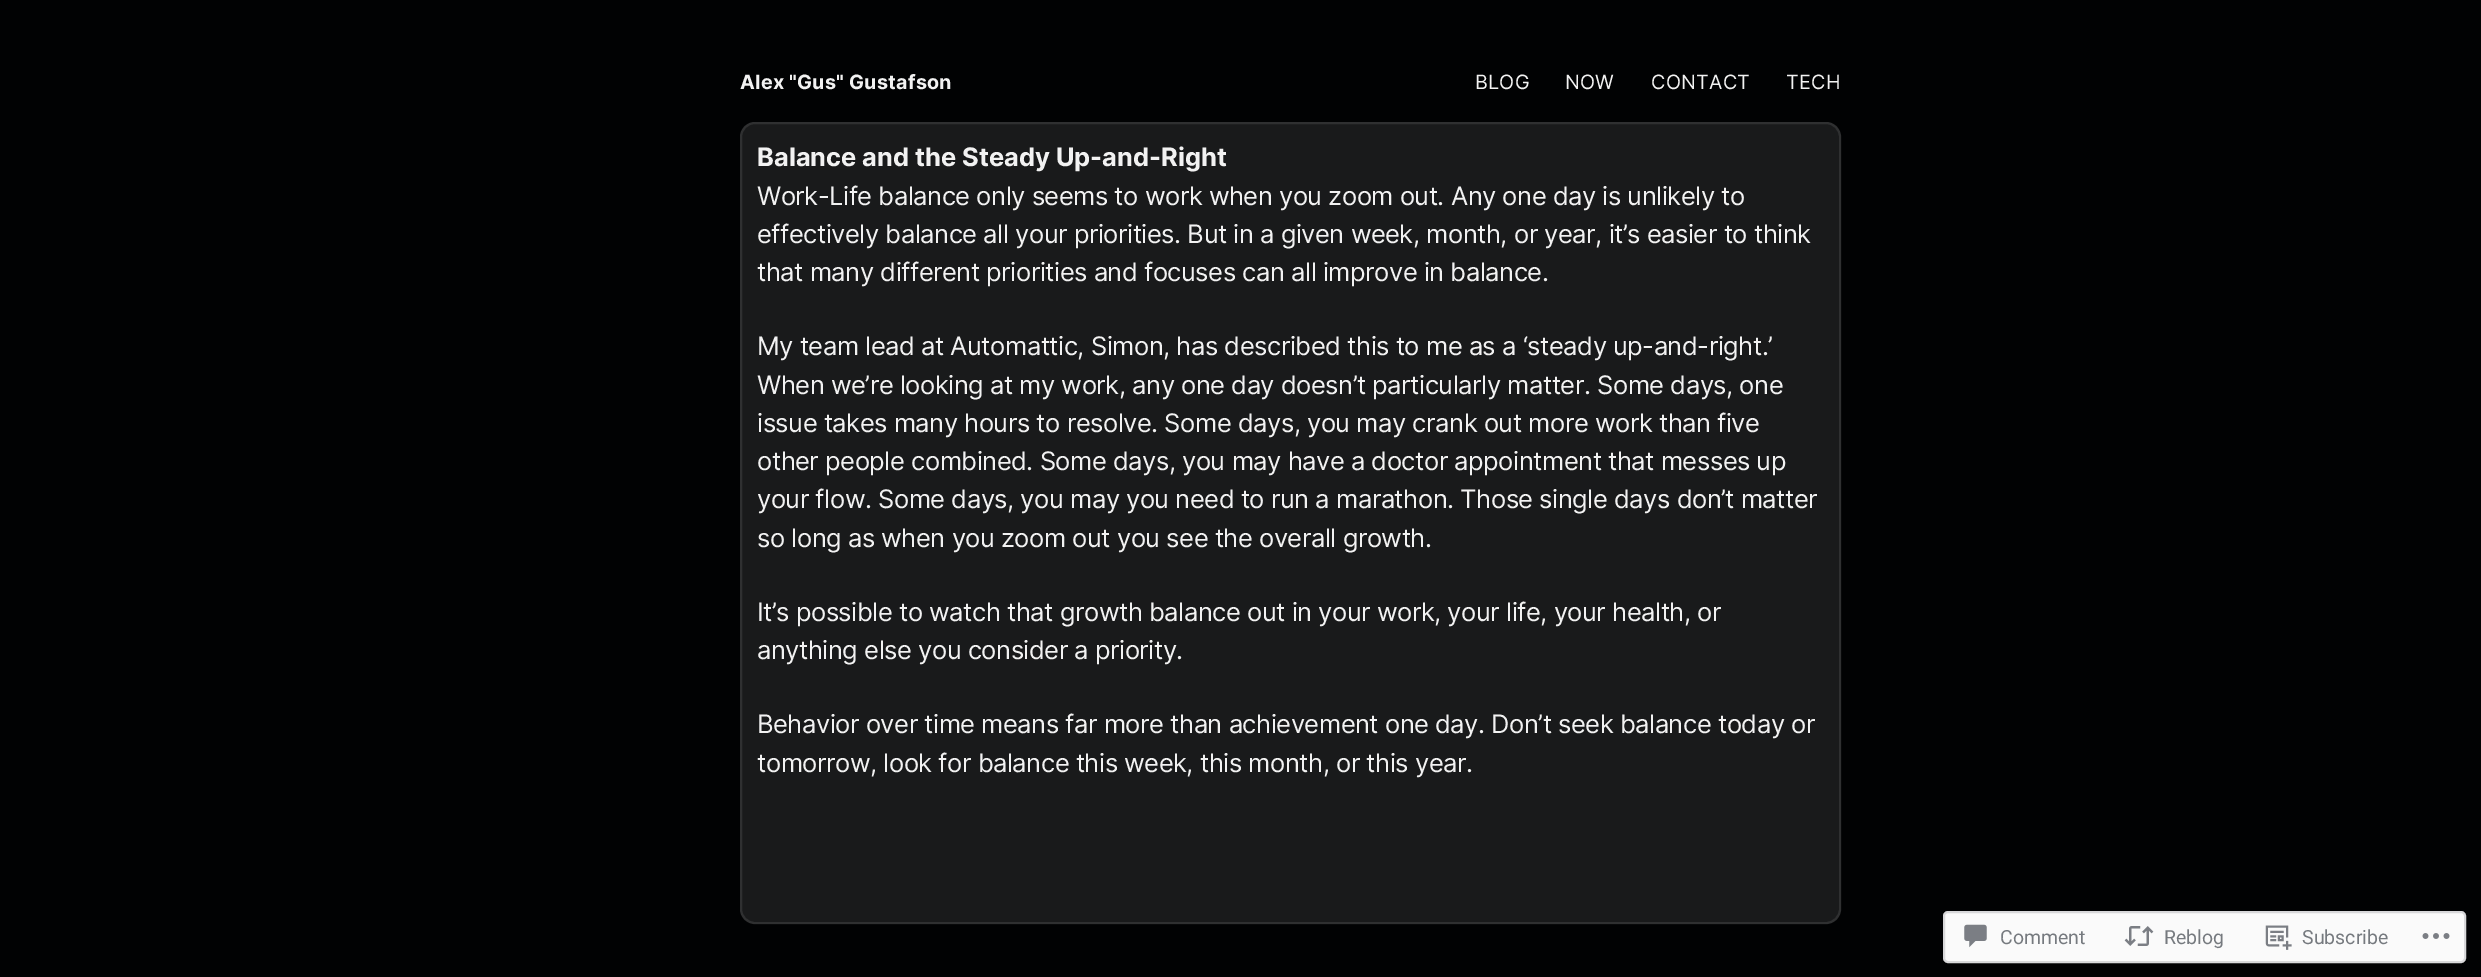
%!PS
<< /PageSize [2481 977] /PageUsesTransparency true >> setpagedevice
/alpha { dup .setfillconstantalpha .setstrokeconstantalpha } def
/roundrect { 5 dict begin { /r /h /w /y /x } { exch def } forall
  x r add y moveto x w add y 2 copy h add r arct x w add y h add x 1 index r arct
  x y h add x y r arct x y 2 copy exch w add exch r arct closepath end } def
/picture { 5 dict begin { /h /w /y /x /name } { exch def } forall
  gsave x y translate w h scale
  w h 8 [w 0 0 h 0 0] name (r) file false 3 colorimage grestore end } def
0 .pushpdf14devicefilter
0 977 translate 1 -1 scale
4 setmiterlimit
0.004 0.008 0.012 setrgbcolor
0 0 2481 977 rectfill
/Inter-Bold [19.75 0 0 -19.75 0 0] selectfont
0.949 setgray
740 89 moveto 0.25 0 (Alex "Gus" Gustafson) ashow
/Inter-Regular [19.75 0 0 -19.75 0 0] selectfont
1475 89 moveto 0.25 0 (BLOG) ashow
1565 89 moveto 0.25 0 (NOW) ashow
1651 89 moveto 0.25 0 (CONTACT) ashow
1786 89 moveto 0.25 0 (TECH) ashow
0.098 0.102 0.106 setrgbcolor
740 122 1101 802 15 roundrect fill
0.1 alpha
0.949 setgray
2 setlinewidth
741 123 1099 800 14 roundrect stroke
/Inter-Bold [25.5 0 0 -25.5 0 0] selectfont
1 alpha
757 166 moveto (Balance and the Steady Up-and-Right) show
/Inter-Regular [25.5 0 0 -25.5 0 0] selectfont
757 205 moveto -0.48 0 (Work-Life balance only seems to work when you zoom out. Any one day is unlikely to) ashow
757 243 moveto -0.48 0 (effectively balance all your priorities. But in a given week, month, or year, it’s easier to think) ashow
757 281 moveto -0.48 0 (that many different priorities and focuses can all improve in balance.) ashow
757 355 moveto -0.48 0 (My team lead at Automattic, Simon, has described this to me as a ‘steady up-and-right.’) ashow
757 394 moveto -0.48 0 (When we’re looking at my work, any one day doesn’t particularly matter. Some days, one) ashow
757 432 moveto -0.48 0 (issue takes many hours to resolve. Some days, you may crank out more work than five) ashow
757 470 moveto -0.48 0 (other people combined. Some days, you may have a doctor appointment that messes up) ashow
757 508 moveto -0.48 0 (your flow. Some days, you may you need to run a marathon. Those single days don’t matter) ashow
757 547 moveto -0.48 0 (so long as when you zoom out you see the overall growth.) ashow
757 621 moveto -0.48 0 (It’s possible to watch that growth balance out in your work, your life, your health, or) ashow
757 659 moveto -0.48 0 (anything else you consider a priority.) ashow
757 733 moveto -0.48 0 (Behavior over time means far more than achievement one day. Don’t seek balance today or) ashow
757 772 moveto -0.48 0 (tomorrow, look for balance this week, this month, or this year.) ashow
0.98 setgray
1944 912 521 50 4 roundrect gsave fill grestore
0.847 0.847 0.855 setrgbcolor
stroke
(img1.rgb) 1964 924 23 24 picture
/Roboto-Regular [19.5 0 0 -19.5 0 0] selectfont
0.463 0.478 0.498 setrgbcolor
2000 944 moveto (Comment) show
(img2.rgb) 2124 926 30 20 picture
2164 944 moveto (Reblog) show
(img3.rgb) 2265 925 27 25 picture
2302 944 moveto (Subscribe) show
(img4.rgb) 2422 933 28 6 picture
.poppdf14devicefilter showpage
